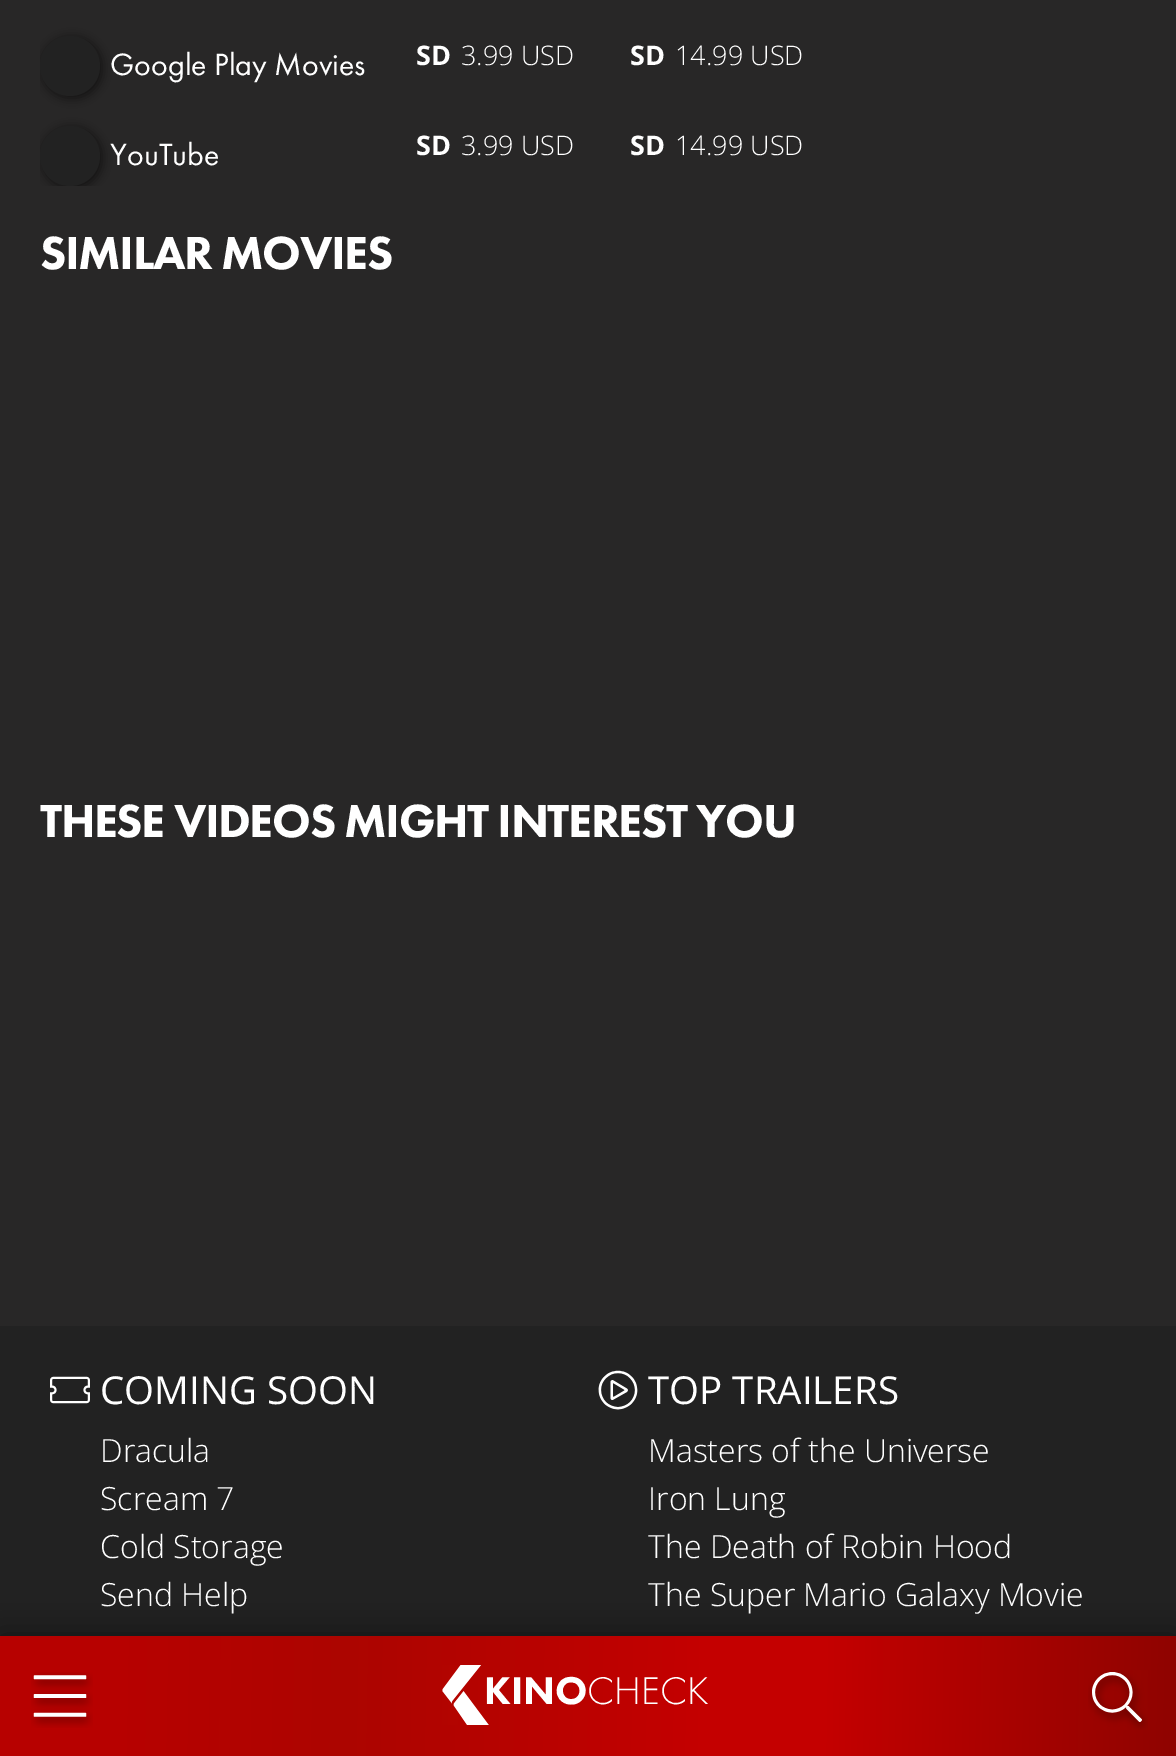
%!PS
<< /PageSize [1176 1756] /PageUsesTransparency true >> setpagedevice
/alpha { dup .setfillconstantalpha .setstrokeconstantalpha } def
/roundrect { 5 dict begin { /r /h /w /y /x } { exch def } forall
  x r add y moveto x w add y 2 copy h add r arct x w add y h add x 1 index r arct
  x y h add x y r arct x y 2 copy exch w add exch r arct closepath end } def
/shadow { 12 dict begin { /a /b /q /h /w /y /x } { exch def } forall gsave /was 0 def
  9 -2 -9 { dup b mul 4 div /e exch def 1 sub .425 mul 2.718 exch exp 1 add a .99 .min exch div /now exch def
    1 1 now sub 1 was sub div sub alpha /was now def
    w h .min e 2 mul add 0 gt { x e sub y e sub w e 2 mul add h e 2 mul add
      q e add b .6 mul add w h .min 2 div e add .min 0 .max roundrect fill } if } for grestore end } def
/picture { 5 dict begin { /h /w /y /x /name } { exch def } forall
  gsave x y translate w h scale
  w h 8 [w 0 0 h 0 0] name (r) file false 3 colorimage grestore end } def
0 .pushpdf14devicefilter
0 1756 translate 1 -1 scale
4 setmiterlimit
0.157 0.153 0.153 setrgbcolor
0 0 1176 1756 rectfill
gsave
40 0 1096 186 rectclip
0 setgray
42 38 60 60 30 5 0.5 shadow
grestore
0.133 setgray
newpath 70 66 30 0 360 arc closepath fill
/FuturaPT-Regular [32 0 0 -32 0 0] selectfont
1 setgray
110 75 moveto (Google Play Movies) show
/OpenSans-Bold [27 0 0 -27 0 0] selectfont
416 65 moveto (SD) show
/OpenSans-Light [27 0 0 -27 0 0] selectfont
461 65 moveto (3.99 USD) show
/OpenSans-Bold [27 0 0 -27 0 0] selectfont
630 65 moveto (SD) show
/OpenSans-Light [27 0 0 -27 0 0] selectfont
675 65 moveto (14.99 USD) show
gsave
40 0 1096 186 rectclip
0 setgray
42 128 60 60 30 5 0.5 shadow
grestore
0.133 setgray
newpath 70 156 30 0 360 arc closepath fill
/FuturaPT-Regular [32 0 0 -32 0 0] selectfont
1 setgray
110 165 moveto (YouTube) show
/OpenSans-Bold [27 0 0 -27 0 0] selectfont
416 155 moveto (SD) show
/OpenSans-Light [27 0 0 -27 0 0] selectfont
461 155 moveto (3.99 USD) show
/OpenSans-Bold [27 0 0 -27 0 0] selectfont
630 155 moveto (SD) show
/OpenSans-Light [27 0 0 -27 0 0] selectfont
675 155 moveto (14.99 USD) show
/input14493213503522-Regular [48 0 0 -48 0 0] selectfont
40 269 moveto -1.45 0 (SIMILAR MOVIES) ashow
40 837 moveto -1.45 0 (THESE VIDEOS MIGHT INTEREST YOU) ashow
0.133 setgray
0 1326 1176 310 rectfill
(img1.rgb) 50 1376 40 28 picture
/OpenSans-Regular [38.5 0 0 -38.5 0 0] selectfont
1 setgray
100 1404 moveto (COMING SOON) show
/OpenSans-Light [32 0 0 -32 0 0] selectfont
100 1462 moveto (Dracula) show
100 1510 moveto (Scream 7) show
100 1558 moveto (Cold Storage) show
100 1606 moveto (Send Help) show
(img2.rgb) 598 1370 40 40 picture
/OpenSans-Regular [38.5 0 0 -38.5 0 0] selectfont
648 1404 moveto (TOP TRAILERS) show
/OpenSans-Light [32 0 0 -32 0 0] selectfont
648 1462 moveto (Masters of the Universe) show
648 1510 moveto (Iron Lung) show
648 1558 moveto (The Death of Robin Hood) show
648 1606 moveto (The Super Mario Galaxy Movie) show
0 setgray
0 1636 1176 120 0 15 0.5 shadow
gsave newpath 0 1636 moveto 1176 1636 lineto 1176 1756 lineto 0 1756 lineto closepath clip newpath
<< /ShadingType 2 /ColorSpace /DeviceRGB /Coords [-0.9 1686 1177 1706] /Extend [true true] /Function << /FunctionType 3 /Domain [0 1] /Functions [<< /FunctionType 2 /Domain [0 1] /C0 [0.718 0.004 0] /C1 [0.718 0.004 0] /N 1 >> << /FunctionType 2 /Domain [0 1] /C0 [0.718 0.004 0] /C1 [0.675 0.02 0] /N 1 >> << /FunctionType 2 /Domain [0 1] /C0 [0.675 0.02 0] /C1 [0.769 0 0] /N 1 >> << /FunctionType 2 /Domain [0 1] /C0 [0.769 0 0] /C1 [0.769 0 0] /N 1 >> << /FunctionType 2 /Domain [0 1] /C0 [0.769 0 0] /C1 [0.561 0.016 0] /N 1 >>] /Bounds [0.1 0.3 0.6 0.7] /Encode [0 1 0 1 0 1 0 1 0 1] >> >> shfill grestore
(img3.rgb) 31 1672 62 56 picture
/input14493213503522-Regular [40 0 0 -40 0 0] selectfont
1 setgray
484 1704 moveto (KINO) show
(img4.rgb) 442 1665 47 60 picture
/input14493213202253-Regular [40 0 0 -40 0 0] selectfont
587 1704 moveto (CHECK) show
(img5.rgb) 1088 1670 60 60 picture
.poppdf14devicefilter showpage
